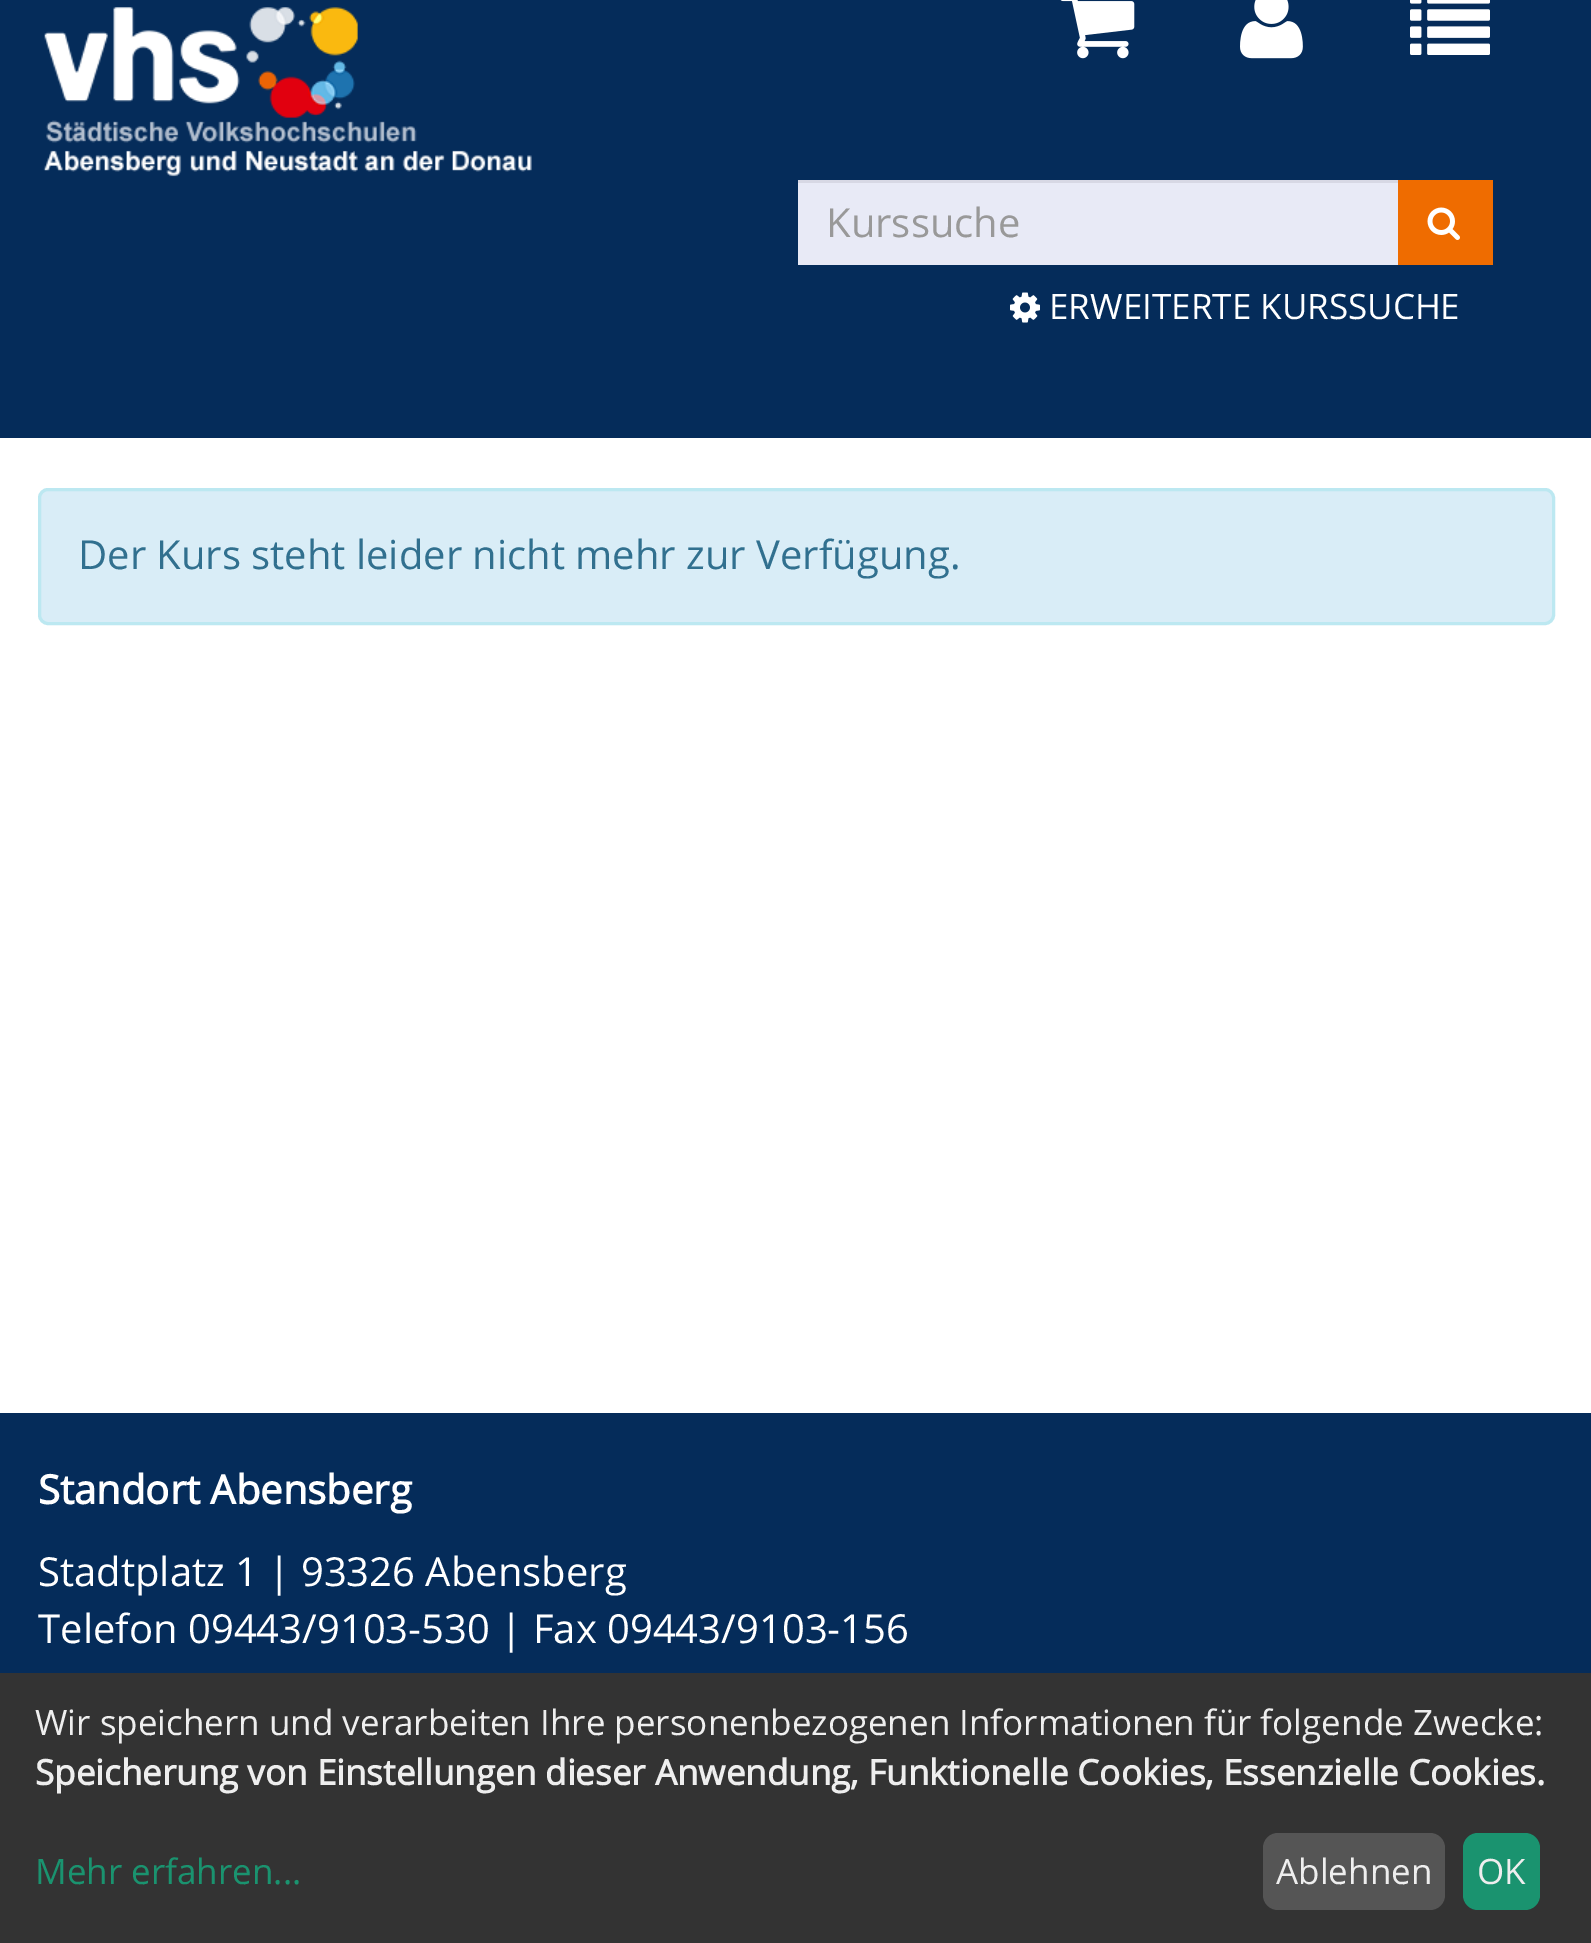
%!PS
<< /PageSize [1591 1943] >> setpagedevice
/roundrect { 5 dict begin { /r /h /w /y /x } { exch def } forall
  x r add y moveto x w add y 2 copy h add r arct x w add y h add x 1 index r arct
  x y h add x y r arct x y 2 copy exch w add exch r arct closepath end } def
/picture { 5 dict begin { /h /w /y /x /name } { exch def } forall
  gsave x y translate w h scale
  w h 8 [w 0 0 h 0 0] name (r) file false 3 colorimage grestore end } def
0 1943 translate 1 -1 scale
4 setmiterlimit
1 setgray
0 0 1591 1943 rectfill
0.02 0.173 0.353 setrgbcolor
0 0 1591 438 rectfill
(img1.rgb) 43 7 489 170 picture
(img2.rgb) 1060 0 75 59 picture
(img3.rgb) 1240 0 63 59 picture
(img4.rgb) 1410 0 80 55 picture
0.91 0.918 0.965 setrgbcolor
798 183 600 82 rectfill
0.843 0.847 0.894 setrgbcolor
798 180 600 3 rectfill
/OpenSans-Regular [40 0 0 -40 0 0] selectfont
0.6 setgray
826 237 moveto (Kurssuche) show
0.937 0.424 0 setrgbcolor
1398 180 95 85 rectfill
(img5.rgb) 1427 207 33 33 picture
(img6.rgb) 1010 292 30 31 picture
/OpenSans-Regular [35 0 0 -35 0 0] selectfont
1 setgray
1049 319 moveto (ERWEITERTE KURSSUCHE) show
0.851 0.929 0.969 setrgbcolor
39.5 489.5 1514 134 8.5 roundrect gsave fill grestore
0.737 0.91 0.945 setrgbcolor
3 setlinewidth
stroke
/OpenSans-Regular [40 0 0 -40 0 0] selectfont
0.192 0.439 0.561 setrgbcolor
78 569 moveto (Der Kurs steht leider nicht mehr zur Verfügung.) show
0.02 0.173 0.353 setrgbcolor
0 1413 1591 260 rectfill
/OpenSans-Bold [40 0 0 -40 0 0] selectfont
1 setgray
38 1504 moveto (Standort Abensberg) show
/OpenSans-Regular [40 0 0 -40 0 0] selectfont
38 1586 moveto (Stadtplatz 1 | 93326 Abensberg) show
38 1643 moveto (Telefon 09443/9103-530 | Fax 09443/9103-156) show
0.2 setgray
0 1673 1591 270 rectfill
/OpenSans-Regular [35 0 0 -35 0 0] selectfont
0.933 setgray
35 1735 moveto (Wir speichern und verarbeiten Ihre personenbezogenen Informationen für folgende Zwecke:) show
/OpenSans-Bold [35 0 0 -35 0 0] selectfont
35 1785 moveto (Speicherung von Einstellungen dieser Anwendung, Funktionelle Cookies, Essenzielle Cookies.) show
/OpenSans-Regular [35 0 0 -35 0 0] selectfont
0.102 0.576 0.435 setrgbcolor
35 1884 moveto (Mehr erfahren...) show
0.333 setgray
1263 1833 182 77 15 roundrect fill
0.933 setgray
1276 1884 moveto (Ablehnen) show
0.102 0.576 0.435 setrgbcolor
1463 1833 77 77 15 roundrect fill
0.933 setgray
1477 1884 moveto (OK) show
showpage
